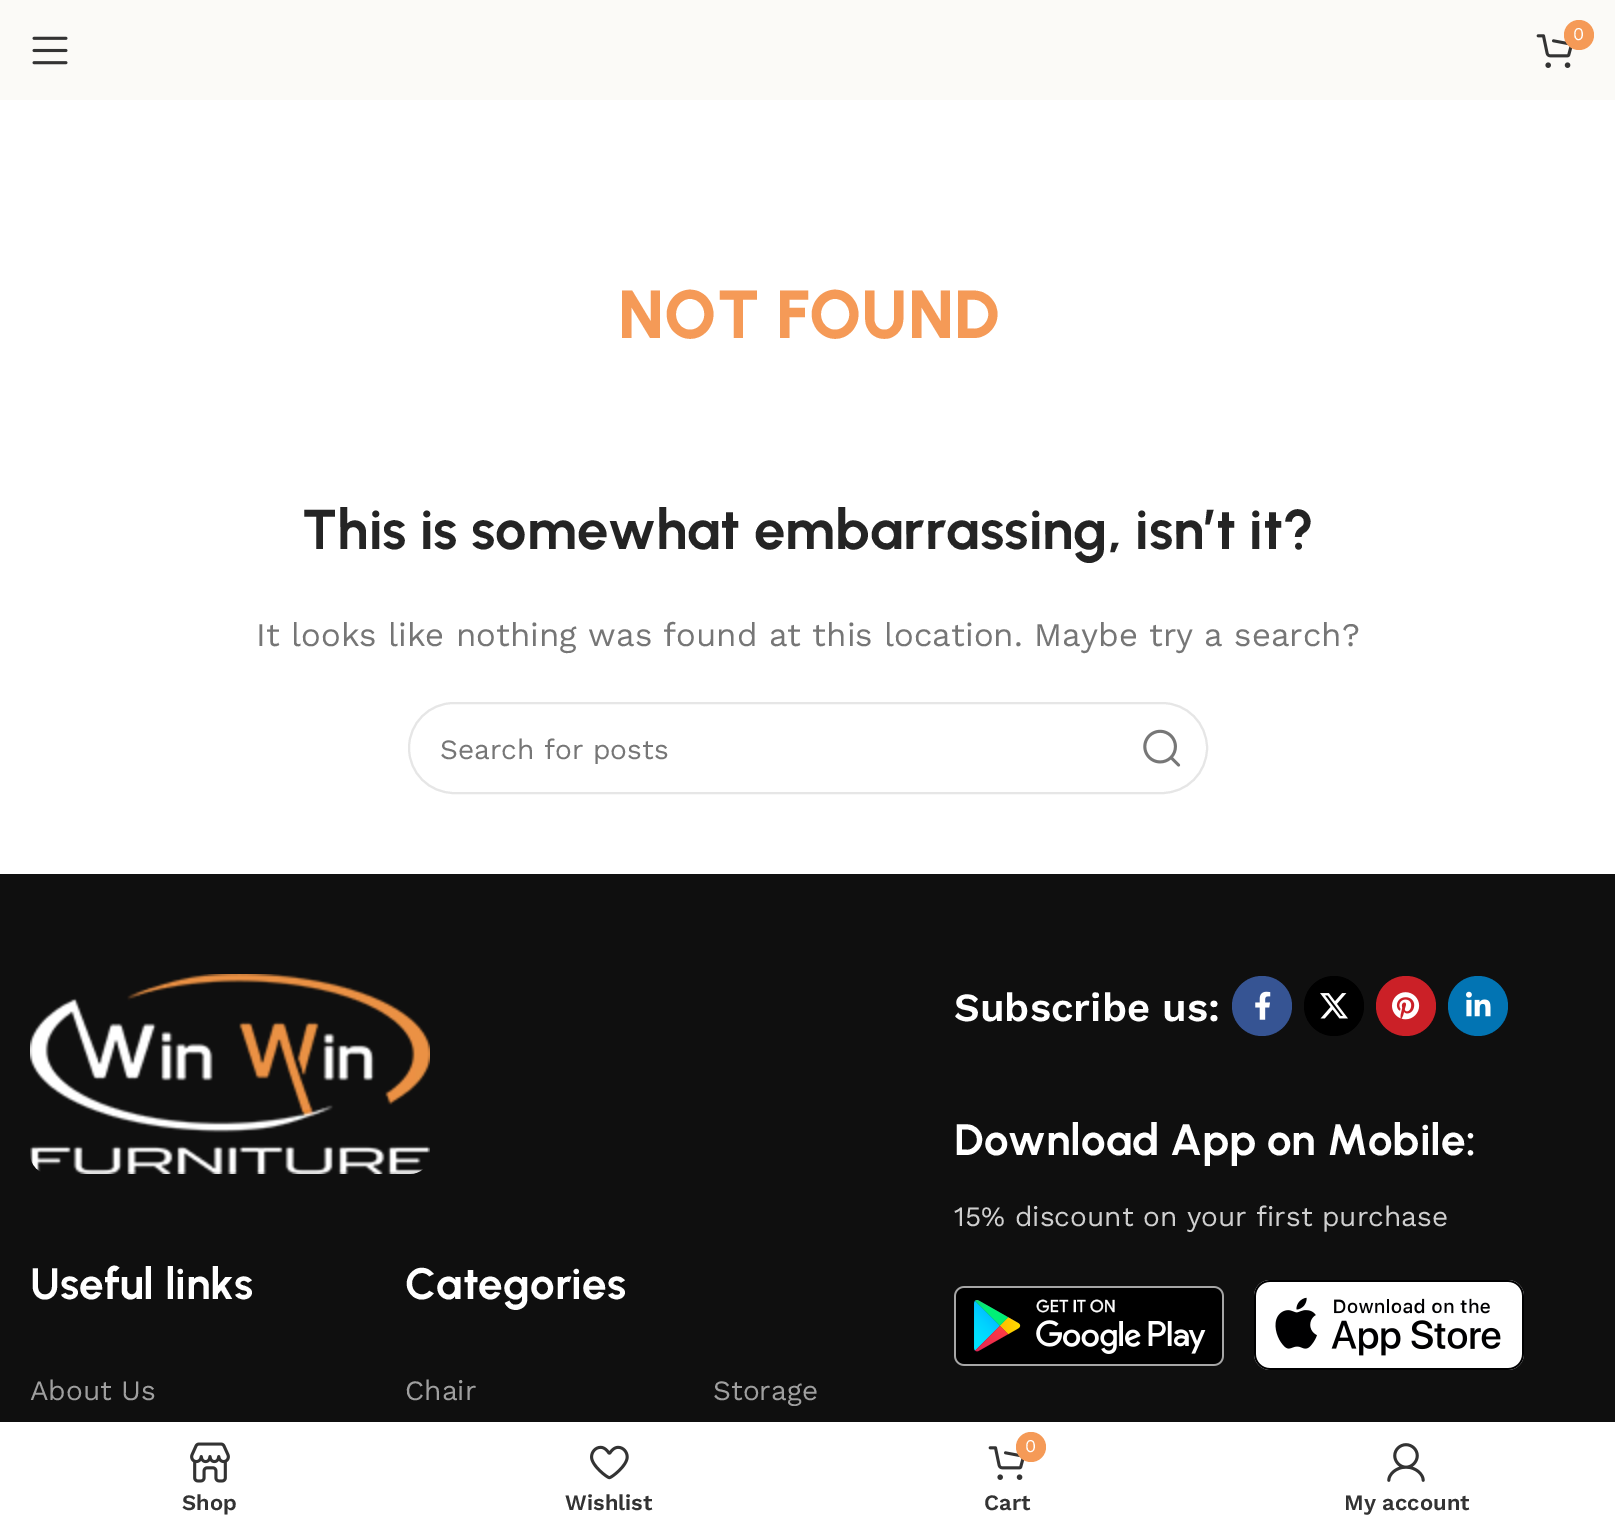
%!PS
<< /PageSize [1615 1531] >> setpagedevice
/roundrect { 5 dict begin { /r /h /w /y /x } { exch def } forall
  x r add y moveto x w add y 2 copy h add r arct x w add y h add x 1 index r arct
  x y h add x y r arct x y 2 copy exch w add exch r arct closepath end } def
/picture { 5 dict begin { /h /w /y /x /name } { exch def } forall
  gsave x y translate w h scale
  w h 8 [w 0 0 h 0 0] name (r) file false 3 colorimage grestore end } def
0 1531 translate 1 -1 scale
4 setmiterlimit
1 setgray
0 0 1615 1531 rectfill
0.984 0.98 0.969 setrgbcolor
0 0 1615 100 rectfill
(img1.rgb) 1536 34 37 34 picture
0.961 0.604 0.341 setrgbcolor
newpath 1579 35 15 0 360 arc closepath fill
/WorkSans-Regular [18 0 0 -18 0 0] selectfont
1 setgray
1573 40 moveto (0) show
(img2.rgb) 32 36 36 29 picture
/Urbanist-ExtraBold [68 0 0 -68 0 0] selectfont
0.961 0.604 0.341 setrgbcolor
618 338 moveto (NOT FOUND) show
/Urbanist-Bold [56 0 0 -56 0 0] selectfont
0.141 setgray
302 549 moveto (This is somewhat embarrassing, isn’t it?) show
/WorkSans-Regular [33 0 0 -33 0 0] selectfont
0.463 setgray
256 646 moveto (It looks like nothing was found at this location. Maybe try a search?) show
0.902 setgray
2 setlinewidth
409 703 798 90 45 roundrect stroke
gsave
440 732 614 32 rectclip
/WorkSans-Regular [28 0 0 -28 0 0] selectfont
0.463 setgray
440 759 moveto (Search for posts) show
grestore
(img3.rgb) 1143 729 38 38 picture
0.059 setgray
0 874 1615 548 rectfill
/WorkSans-SemiBold [40 0 0 -40 0 0] selectfont
1 setgray
954 1021 moveto (Subscribe us:) show
0.212 0.329 0.576 setrgbcolor
newpath 1262 1006 30 0 360 arc closepath fill
(img4.rgb) 1255 991 16 29 picture
0 setgray
newpath 1334 1006 30 0 360 arc closepath fill
(img5.rgb) 1320 993 28 26 picture
0.796 0.125 0.153 setrgbcolor
newpath 1406 1006 30 0 360 arc closepath fill
(img6.rgb) 1392 992 28 28 picture
0.008 0.455 0.702 setrgbcolor
newpath 1478 1006 30 0 360 arc closepath fill
(img7.rgb) 1466 991 25 26 picture
/Urbanist-Bold [44 0 0 -44 0 0] selectfont
1 setgray
954 1155 moveto (Download App on Mobile:) show
/WorkSans-Regular [28 0 0 -28 0 0] selectfont
0.812 setgray
954 1226 moveto (15% discount on your first purchase) show
(img8.rgb) 954 1286 270 80 picture
(img9.rgb) 1254 1280 270 90 picture
(img10.rgb) 30 974 400 200 picture
/Urbanist-Bold [44 0 0 -44 0 0] selectfont
1 setgray
30 1299 moveto (Useful links) show
/WorkSans-Regular [28 0 0 -28 0 0] selectfont
0.624 setgray
30 1400 moveto (About Us) show
/Urbanist-Bold [44 0 0 -44 0 0] selectfont
1 setgray
405 1299 moveto (Categories) show
/WorkSans-Regular [28 0 0 -28 0 0] selectfont
0.624 setgray
405 1400 moveto (Chair) show
713 1400 moveto (Storage) show
(img11.rgb) 190 1442 40 41 picture
/WorkSans-SemiBold [22 0 0 -22 0 0] selectfont
0.2 setgray
182 1510 moveto (Shop) show
(img12.rgb) 590 1445 39 35 picture
565 1510 moveto (Wishlist) show
(img13.rgb) 988 1446 37 34 picture
0.961 0.604 0.341 setrgbcolor
newpath 1031 1447 15 0 360 arc closepath fill
/WorkSans-Regular [18 0 0 -18 0 0] selectfont
1 setgray
1025 1452 moveto (0) show
/WorkSans-SemiBold [22 0 0 -22 0 0] selectfont
0.2 setgray
984 1510 moveto (Cart) show
(img14.rgb) 1387 1443 38 39 picture
1344 1510 moveto (My account) show
showpage
